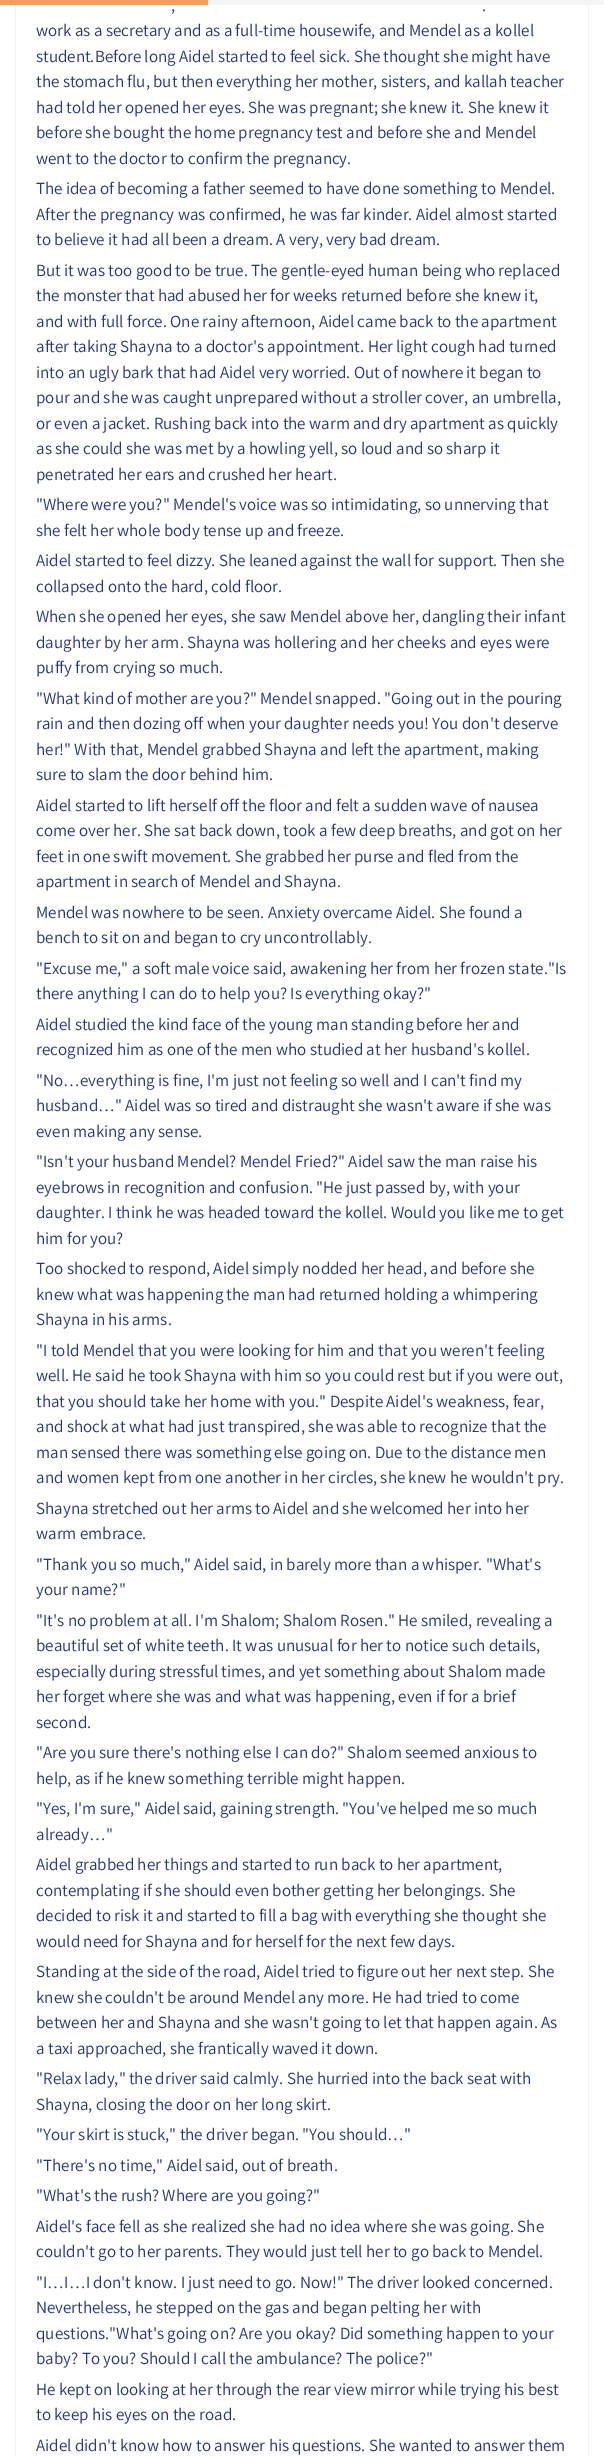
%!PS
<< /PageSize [604 2456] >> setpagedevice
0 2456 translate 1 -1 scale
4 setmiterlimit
1 setgray
0 0 604 2456 rectfill
0.949 setgray
15 5 574 2451 rectfill
1 setgray
16 5 572 2451 rectfill
0.961 setgray
208 0 396 5 rectfill
1 0.608 0.349 setrgbcolor
0 0 208 5 rectfill
/Assistant-Regular [17 0 0 -17 0 0] selectfont
0.157 0.208 0.467 setrgbcolor
171 11 moveto (,) show
482 11 moveto (.) show
36 36 moveto (work as a secretary and as a full-time housewife, and Mendel as a kollel) show
36 62 moveto (student.Before long Aidel started to feel sick. She thought she might have) show
36 87 moveto (the stomach flu, but then everything her mother, sisters, and kallah teacher) show
36 113 moveto (had told her opened her eyes. She was pregnant; she knew it. She knew it) show
36 138 moveto (before she bought the home pregnancy test and before she and Mendel) show
36 164 moveto (went to the doctor to confirm the pregnancy.) show
36 194 moveto (The idea of becoming a father seemed to have done something to Mendel.) show
36 220 moveto (After the pregnancy was confirmed, he was far kinder. Aidel almost started) show
36 245 moveto (to believe it had all been a dream. A very, very bad dream.) show
36 276 moveto (But it was too good to be true. The gentle-eyed human being who replaced) show
36 301 moveto (the monster that had abused her for weeks returned before she knew it,) show
36 327 moveto (and with full force. One rainy afternoon, Aidel came back to the apartment) show
36 352 moveto (after taking Shayna to a doctor's appointment. Her light cough had turned) show
36 378 moveto (into an ugly bark that had Aidel very worried. Out of nowhere it began to) show
36 403 moveto (pour and she was caught unprepared without a stroller cover, an umbrella,) show
36 429 moveto (or even a jacket. Rushing back into the warm and dry apartment as quickly) show
36 454 moveto (as she could she was met by a howling yell, so loud and so sharp it) show
36 480 moveto (penetrated her ears and crushed her heart.) show
36 510 moveto ("Where were you?" Mendel's voice was so intimidating, so unnerving that) show
36 536 moveto (she felt her whole body tense up and freeze.) show
36 566 moveto (Aidel started to feel dizzy. She leaned against the wall for support. Then she) show
36 592 moveto (collapsed onto the hard, cold floor.) show
36 622 moveto (When she opened her eyes, she saw Mendel above her, dangling their infant) show
36 648 moveto (daughter by her arm. Shayna was hollering and her cheeks and eyes were) show
36 673 moveto (puffy from crying so much.) show
36 704 moveto ("What kind of mother are you?" Mendel snapped. "Going out in the pouring) show
36 729 moveto (rain and then dozing off when your daughter needs you! You don't deserve) show
36 755 moveto (her!" With that, Mendel grabbed Shayna and left the apartment, making) show
36 780 moveto (sure to slam the door behind him.) show
36 811 moveto (Aidel started to lift herself off the floor and felt a sudden wave of nausea) show
36 836 moveto (come over her. She sat back down, took a few deep breaths, and got on her) show
36 862 moveto (feet in one swift movement. She grabbed her purse and fled from the) show
36 887 moveto (apartment in search of Mendel and Shayna.) show
36 918 moveto (Mendel was nowhere to be seen. Anxiety overcame Aidel. She found a) show
36 943 moveto (bench to sit on and began to cry uncontrollably.) show
36 974 moveto ("Excuse me," a soft male voice said, awakening her from her frozen state."Is) show
36 999 moveto (there anything I can do to help you? Is everything okay?") show
36 1030 moveto (Aidel studied the kind face of the young man standing before her and) show
36 1055 moveto (recognized him as one of the men who studied at her husband's kollel.) show
36 1086 moveto ("No…everything is fine, I'm just not feeling so well and I can't find my) show
36 1111 moveto (husband…" Aidel was so tired and distraught she wasn't aware if she was) show
36 1137 moveto (even making any sense.) show
36 1167 moveto ("Isn't your husband Mendel? Mendel Fried?" Aidel saw the man raise his) show
36 1193 moveto (eyebrows in recognition and confusion. "He just passed by, with your) show
36 1218 moveto (daughter. I think he was headed toward the kollel. Would you like me to get) show
36 1244 moveto (him for you?) show
36 1274 moveto (Too shocked to respond, Aidel simply nodded her head, and before she) show
36 1300 moveto (knew what was happening the man had returned holding a whimpering) show
36 1325 moveto (Shayna in his arms.) show
36 1356 moveto ("I told Mendel that you were looking for him and that you weren't feeling) show
36 1381 moveto (well. He said he took Shayna with him so you could rest but if you were out,) show
36 1407 moveto (that you should take her home with you." Despite Aidel's weakness, fear,) show
36 1432 moveto (and shock at what had just transpired, she was able to recognize that the) show
36 1458 moveto (man sensed there was something else going on. Due to the distance men) show
36 1483 moveto (and women kept from one another in her circles, she knew he wouldn't pry.) show
36 1514 moveto (Shayna stretched out her arms to Aidel and she welcomed her into her) show
36 1539 moveto (warm embrace.) show
36 1570 moveto ("Thank you so much," Aidel said, in barely more than a whisper. "What's) show
36 1595 moveto (your name?") show
36 1626 moveto ("It's no problem at all. I'm Shalom; Shalom Rosen." He smiled, revealing a) show
36 1651 moveto (beautiful set of white teeth. It was unusual for her to notice such details,) show
36 1677 moveto (especially during stressful times, and yet something about Shalom made) show
36 1702 moveto (her forget where she was and what was happening, even if for a brief) show
36 1728 moveto (second.) show
36 1758 moveto ("Are you sure there's nothing else I can do?" Shalom seemed anxious to) show
36 1784 moveto (help, as if he knew something terrible might happen.) show
36 1814 moveto ("Yes, I'm sure," Aidel said, gaining strength. "You've helped me so much) show
36 1840 moveto (already…") show
36 1870 moveto (Aidel grabbed her things and started to run back to her apartment,) show
36 1896 moveto (contemplating if she should even bother getting her belongings. She) show
36 1921 moveto (decided to risk it and started to fill a bag with everything she thought she) show
36 1947 moveto (would need for Shayna and for herself for the next few days.) show
36 1977 moveto (Standing at the side of the road, Aidel tried to figure out her next step. She) show
36 2003 moveto (knew she couldn't be around Mendel any more. He had tried to come) show
36 2028 moveto (between her and Shayna and she wasn't going to let that happen again. As) show
36 2054 moveto (a taxi approached, she frantically waved it down.) show
36 2084 moveto ("Relax lady," the driver said calmly. She hurried into the back seat with) show
36 2110 moveto (Shayna, closing the door on her long skirt.) show
36 2140 moveto ("Your skirt is stuck," the driver began. "You should…") show
36 2171 moveto ("There's no time," Aidel said, out of breath.) show
36 2201 moveto ("What's the rush? Where are you going?") show
36 2232 moveto (Aidel's face fell as she realized she had no idea where she was going. She) show
36 2257 moveto (couldn't go to her parents. They would just tell her to go back to Mendel.) show
36 2288 moveto ("I…I…I don't know. I just need to go. Now!" The driver looked concerned.) show
36 2313 moveto (Nevertheless, he stepped on the gas and began pelting her with) show
36 2339 moveto (questions."What's going on? Are you okay? Did something happen to your) show
36 2364 moveto (baby? To you? Should I call the ambulance? The police?") show
36 2395 moveto (He kept on looking at her through the rear view mirror while trying his best) show
36 2420 moveto (to keep his eyes on the road.) show
36 2451 moveto (Aidel didn't know how to answer his questions. She wanted to answer them) show
showpage
